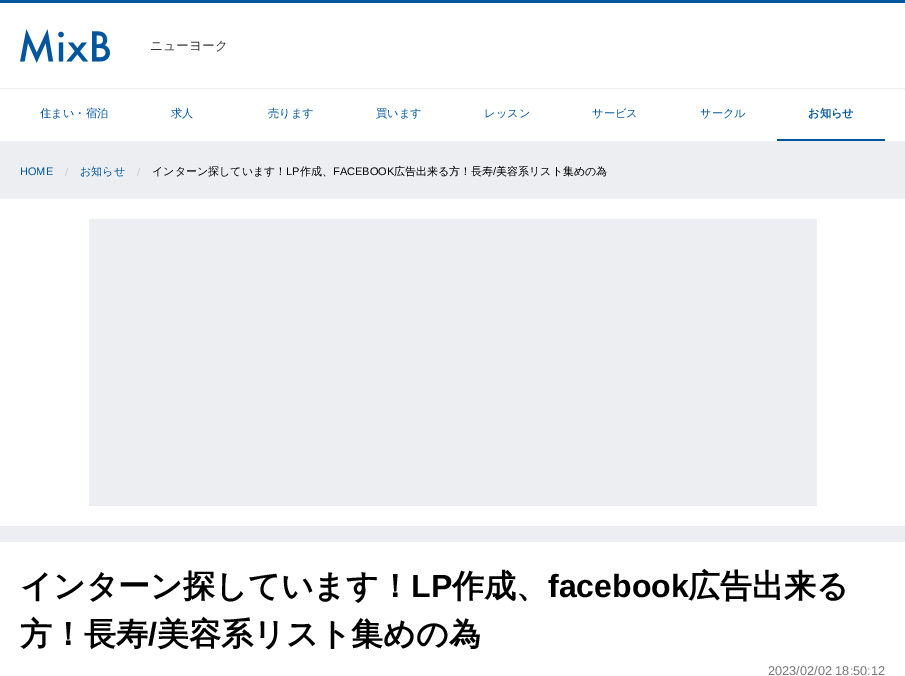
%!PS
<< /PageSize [905 676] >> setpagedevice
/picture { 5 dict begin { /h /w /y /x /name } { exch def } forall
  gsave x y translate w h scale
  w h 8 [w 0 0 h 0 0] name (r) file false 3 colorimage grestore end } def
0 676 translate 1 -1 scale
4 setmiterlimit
0.925 0.933 0.945 setrgbcolor
0 0 905 676 rectfill
1 setgray
0 3 905 85 rectfill
0 0.333 0.616 setrgbcolor
0 0 905 3 rectfill
0.933 setgray
0 88 905 1 rectfill
(img1.rgb) 20 29 90 34 picture
/WenQuanYiZenHei-Medium [12.75 0 0 -12.75 0 0] selectfont
0.2 setgray
150 50 moveto (ニューヨーク) show
1 setgray
0 89 905 52 rectfill
/WenQuanYiZenHei-Medium [11.25 0 0 -11.25 0 0] selectfont
0 0.333 0.616 setrgbcolor
40 117 moveto (住まい・宿泊) show
171 117 moveto (求人) show
268 117 moveto (売ります) show
376 117 moveto (買います) show
484 117 moveto (レッスン) show
592 117 moveto (サービス) show
700 117 moveto (サークル) show
777 139 108 2 rectfill
/WenQuanYiZenHei-Bold [11.25 0 0 -11.25 0 0] selectfont
808 117 moveto (お知らせ) show
/LiberationSans-Regular [11 0 0 -11 0 0] selectfont
20 175 moveto (HOME) show
0.792 setgray
65 176 moveto (/) show
/WenQuanYiZenHei-Medium [11 0 0 -11 0 0] selectfont
0 0.333 0.616 setrgbcolor
80 175 moveto (お知らせ) show
/LiberationSans-Regular [11 0 0 -11 0 0] selectfont
0.792 setgray
137 176 moveto (/) show
/WenQuanYiZenHei-Medium [11 0 0 -11 0 0] selectfont
0 setgray
152 175 moveto (インターン探しています！) show
/LiberationSans-Regular [11 0 0 -11 0 0] selectfont
286 175 moveto (LP) show
/WenQuanYiZenHei-Medium [11 0 0 -11 0 0] selectfont
300 175 moveto (作成、) show
/LiberationSans-Regular [11 0 0 -11 0 0] selectfont
333 175 moveto (FACEBOOK) show
/WenQuanYiZenHei-Medium [11 0 0 -11 0 0] selectfont
394 175 moveto (広告出来る方！長寿) show
/LiberationSans-Regular [11 0 0 -11 0 0] selectfont
493 175 moveto (/) show
/WenQuanYiZenHei-Medium [11 0 0 -11 0 0] selectfont
496 175 moveto (美容系リスト集めの為) show
1 setgray
0 199 905 327 rectfill
0.925 0.933 0.945 setrgbcolor
89 219 728 287 rectfill
1 setgray
0 542 905 134 rectfill
/WenQuanYiZenHei-Bold [32 0 0 -32 0 0] selectfont
0 setgray
20 597 moveto (インターン探しています！) show
/LiberationSans-Bold [32 0 0 -32 0 0] selectfont
411 597 moveto (LP) show
/WenQuanYiZenHei-Bold [32 0 0 -32 0 0] selectfont
452 597 moveto (作成、) show
/LiberationSans-Bold [32 0 0 -32 0 0] selectfont
548 597 moveto (facebook) show
/WenQuanYiZenHei-Bold [32 0 0 -32 0 0] selectfont
688 597 moveto (広告出来る) show
20 645 moveto (方！長寿) show
/LiberationSans-Bold [32 0 0 -32 0 0] selectfont
148 645 moveto (/) show
/WenQuanYiZenHei-Bold [32 0 0 -32 0 0] selectfont
157 645 moveto (美容系リスト集めの為) show
/LiberationSans-Regular [12.75 0 0 -12.75 0 0] selectfont
0.463 setgray
768 675 moveto (2023/02/02 18:50:12) show
showpage
